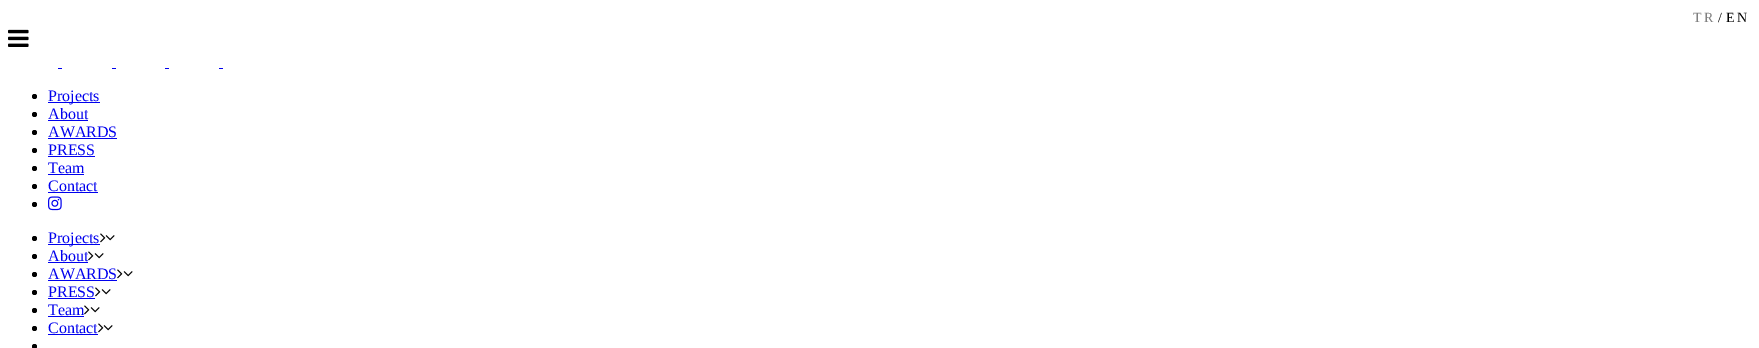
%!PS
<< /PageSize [1759 348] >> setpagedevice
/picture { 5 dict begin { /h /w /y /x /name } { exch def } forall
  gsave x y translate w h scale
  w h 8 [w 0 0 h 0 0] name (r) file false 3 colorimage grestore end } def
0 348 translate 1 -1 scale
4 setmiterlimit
1 setgray
0 0 1759 348 rectfill
/LiberationSerif-Regular [14 0 0 -14 0 0] selectfont
0.502 setgray
1693 22 moveto 2 0 (TR) ashow
0 setgray
1718 22 moveto (/) show
1726 22 moveto 2 0 (EN) ashow
(img1.rgb) 8 29 21 18 picture
0 0 0.933 setrgbcolor
58 68 4 1 rectfill
112 68 4 1 rectfill
165 68 4 1 rectfill
219 68 4 1 rectfill
0 setgray
newpath 34.5 96.5 2.5 0 360 arc closepath fill
0 0 0.933 setrgbcolor
48 102 52 1 rectfill
/LiberationSerif-Regular [16 0 0 -16 0 0] selectfont
48 101 moveto (Projects) show
0 setgray
newpath 34.5 114.5 2.5 0 360 arc closepath fill
0 0 0.933 setrgbcolor
48 119 moveto (About) show
48 120 40 1 rectfill
0 setgray
newpath 34.5 132.5 2.5 0 360 arc closepath fill
0 0 0.933 setrgbcolor
48 137 moveto (AWARDS) show
48 138 69 1 rectfill
0 setgray
newpath 34.5 150.5 2.5 0 360 arc closepath fill
0 0 0.933 setrgbcolor
48 155 moveto (PRESS) show
48 156 47 1 rectfill
0 setgray
newpath 34.5 168.5 2.5 0 360 arc closepath fill
0 0 0.933 setrgbcolor
48 173 moveto (Team) show
48 174 36 1 rectfill
0 setgray
newpath 34.5 186.5 2.5 0 360 arc closepath fill
0 0 0.933 setrgbcolor
48 191 moveto (Contact) show
48 192 50 1 rectfill
0 setgray
newpath 34.5 204.5 2.5 0 360 arc closepath fill
(img2.rgb) 48 196 14 15 picture
newpath 34.5 238.5 2.5 0 360 arc closepath fill
0 0 0.933 setrgbcolor
48 244 52 1 rectfill
48 243 moveto (Projects) show
(img3.rgb) 100 233 6 10 picture
(img4.rgb) 105 235 10 6 picture
0 setgray
newpath 34.5 256.5 2.5 0 360 arc closepath fill
0 0 0.933 setrgbcolor
48 261 moveto (About) show
48 262 40 1 rectfill
(img3.rgb) 88 251 6 10 picture
(img5.rgb) 94 253 10 6 picture
0 setgray
newpath 34.5 274.5 2.5 0 360 arc closepath fill
0 0 0.933 setrgbcolor
48 279 moveto (AWARDS) show
48 280 69 1 rectfill
(img3.rgb) 117 269 6 10 picture
(img5.rgb) 123 271 10 6 picture
0 setgray
newpath 34.5 292.5 2.5 0 360 arc closepath fill
0 0 0.933 setrgbcolor
48 297 moveto (PRESS) show
48 298 47 1 rectfill
(img3.rgb) 95 287 6 10 picture
(img5.rgb) 101 289 10 6 picture
0 setgray
newpath 34.5 310.5 2.5 0 360 arc closepath fill
0 0 0.933 setrgbcolor
48 315 moveto (Team) show
48 316 36 1 rectfill
(img6.rgb) 84 305 6 10 picture
(img5.rgb) 90 307 10 6 picture
0 setgray
newpath 34.5 328.5 2.5 0 360 arc closepath fill
0 0 0.933 setrgbcolor
48 333 moveto (Contact) show
48 334 50 1 rectfill
(img3.rgb) 98 323 6 10 picture
(img4.rgb) 103 325 10 6 picture
0 setgray
newpath 34.5 346.5 2.5 0 360 arc closepath fill
showpage
